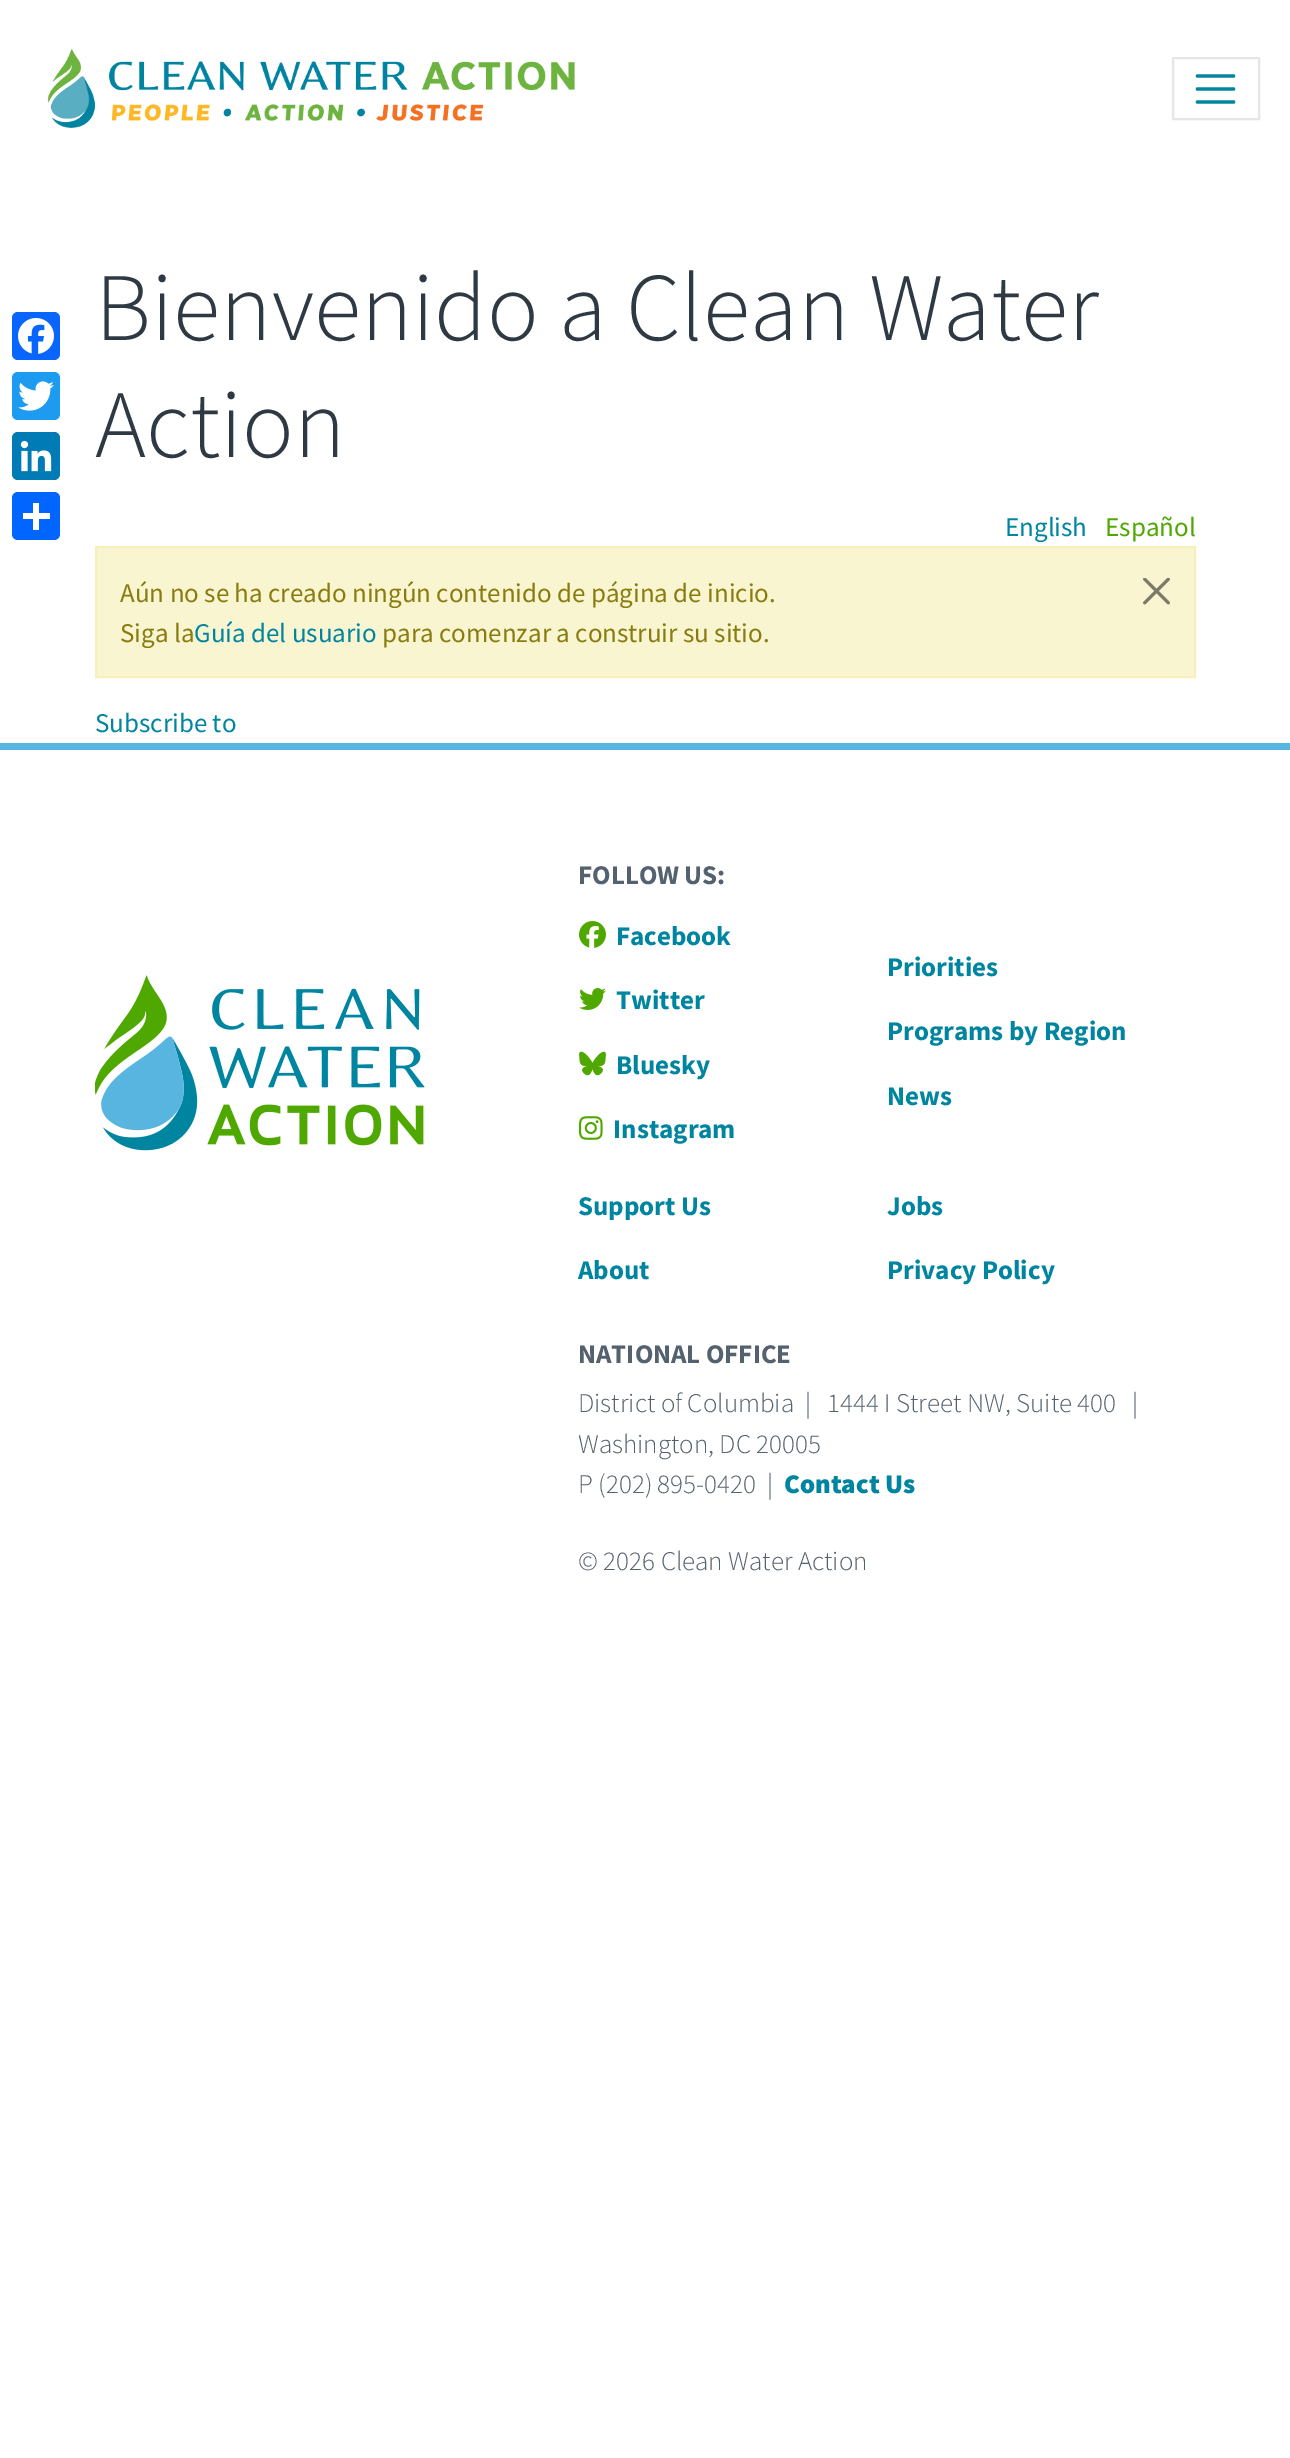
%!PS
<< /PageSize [1290 2458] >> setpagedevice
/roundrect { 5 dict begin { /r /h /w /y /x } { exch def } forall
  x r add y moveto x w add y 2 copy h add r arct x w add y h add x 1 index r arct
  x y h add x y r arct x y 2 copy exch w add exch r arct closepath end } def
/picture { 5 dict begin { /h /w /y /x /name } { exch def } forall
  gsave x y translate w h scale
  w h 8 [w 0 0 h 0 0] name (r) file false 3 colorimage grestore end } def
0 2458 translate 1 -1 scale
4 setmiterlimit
1 setgray
0 0 1290 2458 rectfill
0.031 0.4 1 setrgbcolor
12 312 48 48 6 roundrect fill
(img1.rgb) 18 318 36 36 picture
0.114 0.608 0.941 setrgbcolor
12 372 48 48 6 roundrect fill
(img2.rgb) 18 381 36 30 picture
0 0.482 0.71 setrgbcolor
12 432 48 48 6 roundrect fill
(img3.rgb) 20 440 32 32 picture
0.004 0.4 1 setrgbcolor
12 492 48 48 6 roundrect fill
1 setgray
33 503 6 27 rectfill
23 513 27 6 rectfill
(img4.rgb) 47 48 528 80 picture
0.902 setgray
2 setlinewidth
1173 58 86 61 rectstroke
0 0.522 0.631 setrgbcolor
3.3 setlinewidth
1 setlinecap
newpath 1197.5 76 moveto 1233.5 76 lineto 1197.5 89 moveto 1233.5 89 lineto 1197.5 102 moveto 1233.5 102 lineto stroke
/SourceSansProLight-Light [97 0 0 -97 0 0] selectfont
0.18 0.224 0.267 setrgbcolor
95 340 moveto (Bienvenido a Clean Water) show
95 457 moveto (Action) show
/SourceSansPro-Regular [27 0 0 -27 0 0] selectfont
0 0.522 0.631 setrgbcolor
1005 536 moveto (English) show
0.31 0.659 0 setrgbcolor
1105 536 moveto (Español) show
0.976 0.961 0.82 setrgbcolor
newpath 96 547 moveto 1195 547 lineto 1195 677 lineto 96 677 lineto closepath gsave fill grestore
0.969 0.945 0.725 setrgbcolor
2 setlinewidth
0 setlinecap
stroke
0.533 0.486 0.055 setrgbcolor
120 602 moveto (Aún no se ha creado ningún contenido de página de inicio.) show
(img5.rgb) 1143 578 27 27 picture
120 642 moveto (Siga la) show
0 0.522 0.631 setrgbcolor
194 642 moveto (Guía del usuario) show
0.533 0.486 0.055 setrgbcolor
382 642 moveto (para comenzar a construir su sitio.) show
0 0.522 0.631 setrgbcolor
95 732 moveto (Subscribe to) show
0.341 0.71 0.878 setrgbcolor
0 743 1290 7 rectfill
(img6.rgb) 95 975 330 176 picture
/SourceSansPro-Bold [27 0 0 -27 0 0] selectfont
0.329 0.38 0.431 setrgbcolor
578 884 moveto (FOLLOW US:) show
(img7.rgb) 579 921 27 27 picture
0 0.522 0.631 setrgbcolor
616 945 moveto (Facebook) show
(img8.rgb) 579 988 27 22 picture
616 1009 moveto (Twitter) show
(img9.rgb) 579 1051 27 25 picture
616 1074 moveto (Bluesky) show
(img10.rgb) 579 1116 24 24 picture
613 1138 moveto (Instagram) show
887 976 moveto (Priorities) show
887 1040 moveto (Programs by Region) show
887 1105 moveto (News) show
578 1215 moveto (Support Us) show
578 1279 moveto (About) show
887 1215 moveto (Jobs) show
887 1279 moveto (Privacy Policy) show
0.329 0.38 0.431 setrgbcolor
578 1363 moveto (NATIONAL OFFICE) show
/SourceSansProLight-Light [27 0 0 -27 0 0] selectfont
578 1412 moveto (District of Columbia  |   1444 I Street NW, Suite 400   |) show
578 1453 moveto (Washington, DC 20005) show
578 1493 moveto (P \(202\) 895-0420  |) show
/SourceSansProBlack-Black [27 0 0 -27 0 0] selectfont
0 0.522 0.631 setrgbcolor
784 1493 moveto (Contact Us) show
/SourceSansProLight-Light [27 0 0 -27 0 0] selectfont
0.329 0.38 0.431 setrgbcolor
578 1570 moveto (© 2026 Clean Water Action) show
showpage
